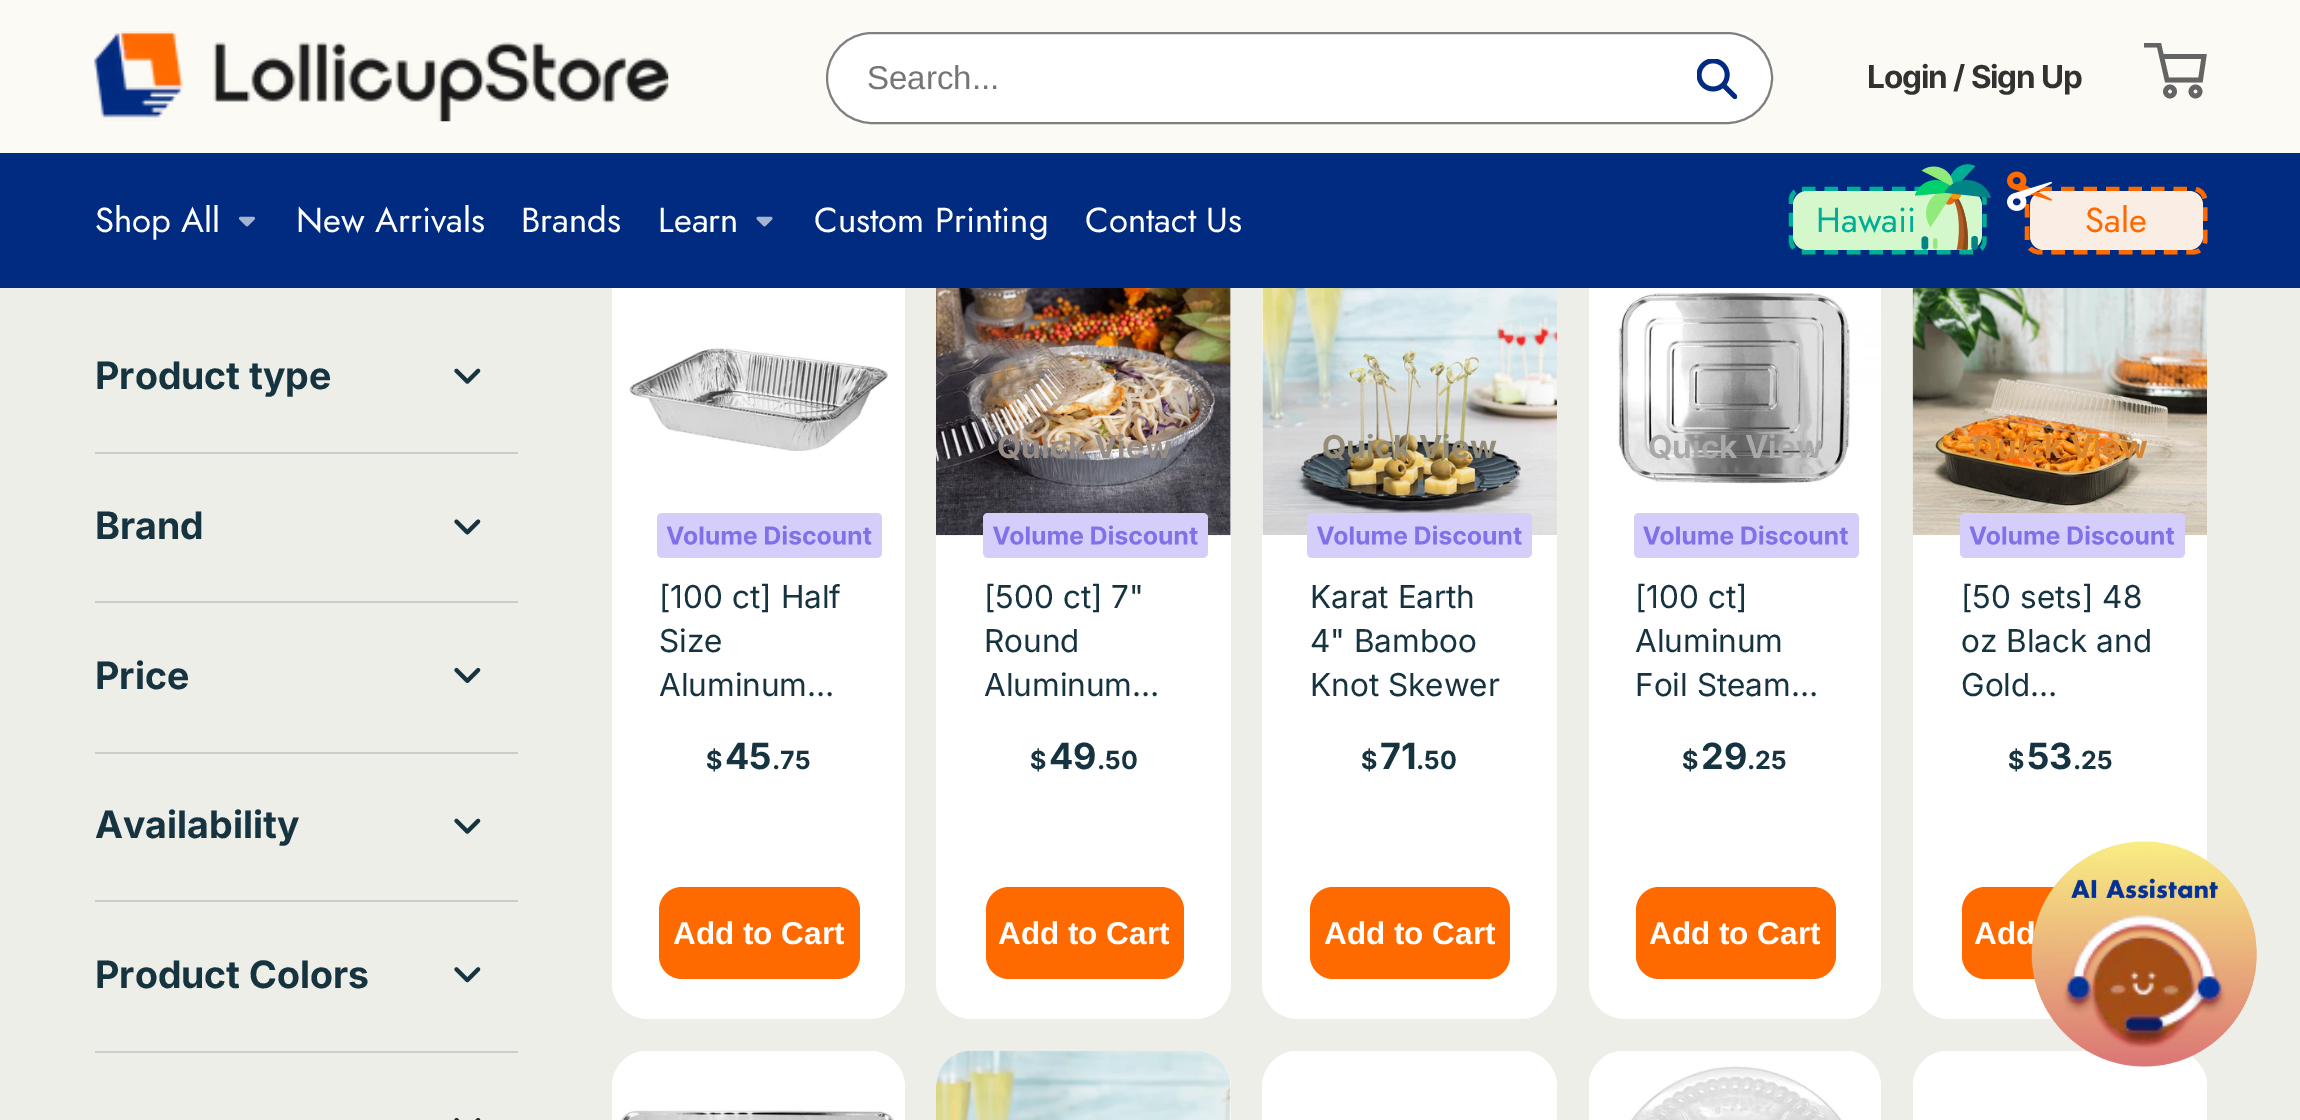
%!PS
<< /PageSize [2300 1120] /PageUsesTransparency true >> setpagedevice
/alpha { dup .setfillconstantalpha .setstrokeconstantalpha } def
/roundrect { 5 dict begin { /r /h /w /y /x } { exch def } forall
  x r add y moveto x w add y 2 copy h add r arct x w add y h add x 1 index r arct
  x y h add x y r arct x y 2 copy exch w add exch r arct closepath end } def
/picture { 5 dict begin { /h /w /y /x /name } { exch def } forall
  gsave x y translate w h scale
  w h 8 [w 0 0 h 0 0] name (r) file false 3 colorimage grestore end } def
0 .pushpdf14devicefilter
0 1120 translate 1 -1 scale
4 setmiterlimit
0.933 0.933 0.914 setrgbcolor
0 0 2300 1120 rectfill
0.988 0.98 0.957 setrgbcolor
0 0 2300 153 rectfill
(img1.rgb) 94 31 575 91 picture
1 setgray
826 32 947 90 45 roundrect fill
848 32 903 90 rectfill
826 32 947 92 46 roundrect fill
0.5 alpha
0 setgray
2 setlinewidth
827 33 945 90 45 roundrect stroke
/LiberationSans-Regular [33 0 0 -33 0 0] selectfont
1 alpha
0.459 setgray
867 89 moveto (Search...) show
(img2.rgb) 1697 59 40 40 picture
/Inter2-Bold [31.5 0 0 -31.5 0 0] selectfont
0.196 0.196 0.192 setrgbcolor
1867 88 moveto -1.1 0 (Login / Sign Up) ashow
gsave
2144 43 63 56 rectclip
0.392 setgray
4.7 setlinewidth
newpath 2161.5 56.5 moveto 2204 56.5 lineto 2200.5 80 lineto 2167 80 lineto 2159 45 lineto 2144 45 lineto stroke
grestore
0.392 setgray
4.7 setlinewidth
newpath 2170 91.5 4.5 0 360 arc closepath stroke
newpath 2195.5 91.5 4.5 0 360 arc closepath stroke
1 setgray
612 241 293 778 36 roundrect fill
936 241 295 778 36 roundrect fill
1262 241 295 778 36 roundrect fill
1589 241 292 778 36 roundrect fill
1913 241 294 778 36 roundrect fill
0 0.169 0.502 setrgbcolor
0 153 2300 135 rectfill
/Jost-Regular [34.75 0 0 -34.75 0 0] selectfont
1 setgray
95 232 moveto (Shop All) show
(img3.rgb) 238 216 18 11 picture
296 232 moveto (New Arrivals) show
521 232 moveto (Brands) show
658 232 moveto (Learn) show
(img4.rgb) 756 216 17 11 picture
814 232 moveto (Custom Printing) show
1085 232 moveto (Contact Us) show
0 0.678 0.584 setrgbcolor
4.5 setlinewidth
[13.5 9] 0 setdash
newpath 1802 189 moveto 1973 189 lineto 1979.5 189 1984.5 194 1984.5 200 curveto 1984.5 241 lineto 1984.5 247 1979.5 252 1973 252 curveto 1802 252 lineto 1796 252 1791 247 1791 241 curveto 1791 200 lineto 1791 194 1796 189 1802 189 curveto closepath stroke
0.831 0.973 0.796 setrgbcolor
1793 191 189 59 14 roundrect fill
0 0.678 0.584 setrgbcolor
1816 232 moveto (Hawaii) show
(img5.rgb) 1915 164 76 86 picture
1 0.416 0 setrgbcolor
newpath 2038.5 189 moveto 2194 189 lineto 2200 189 2205 194 2205 200 curveto 2205 241 lineto 2205 247 2200 252 2194 252 curveto 2038.5 252 lineto 2032.5 252 2027 247 2027 241 curveto 2027 200 lineto 2027 194 2032.5 189 2038.5 189 curveto closepath stroke
0.98 0.929 0.894 setrgbcolor
2030 191 173 59 14 roundrect fill
(img6.rgb) 2007 171 45 40 picture
1 0.416 0 setrgbcolor
2085 232 moveto (Sale) show
0.8 setgray
95 452 423 2 rectfill
/Inter-Bold [37.75 0 0 -37.75 0 0] selectfont
0.086 0.2 0.251 setrgbcolor
95 389 moveto (Product type) show
(img7.rgb) 454 368 27 16 picture
0.8 setgray
95 601 423 2 rectfill
0.086 0.2 0.251 setrgbcolor
95 539 moveto (Brand) show
(img8.rgb) 454 519 27 16 picture
0.8 setgray
95 752 423 2 rectfill
0.086 0.2 0.251 setrgbcolor
95 689 moveto (Price) show
(img9.rgb) 454 667 27 16 picture
0.8 setgray
95 900 423 2 rectfill
0.086 0.2 0.251 setrgbcolor
95 838 moveto (Availability) show
(img10.rgb) 454 818 27 16 picture
0.8 setgray
95 1051 423 2 rectfill
0.086 0.2 0.251 setrgbcolor
95 988 moveto (Product Colors) show
(img11.rgb) 454 967 27 16 picture
(img12.rgb) 454 1117 27 3 picture
(img13.rgb) 612 288 284 163 picture
(img14.rgb) 657 513 225 5 picture
(img15.rgb) 657 513 225 45 picture
/Inter-Regular [31.5 0 0 -31.5 0 0] selectfont
659 608 moveto ([100 ct] Half) show
659 652 moveto (Size) show
659 696 moveto (Aluminum…) show
/Inter2-Bold [25 0 0 -25 0 0] selectfont
706 769 moveto ($) show
/Inter2-Bold [36 0 0 -36 0 0] selectfont
725 769 moveto (45) show
/Inter2-Bold [25 0 0 -25 0 0] selectfont
772 769 moveto (.75) show
1 0.416 0 setrgbcolor
659 887 201 92 23 roundrect fill
/LiberationSans-Bold [31.5 0 0 -31.5 0 0] selectfont
1 setgray
673 944 moveto (Add to Cart) show
(img16.rgb) 936 288 295 248 picture
(img17.rgb) 983 513 225 5 picture
/Inter2-Bold [31.5 0 0 -31.5 0 0] selectfont
0.596 0.553 0.529 setrgbcolor
997 458 moveto (Quick View) show
(img18.rgb) 983 513 225 45 picture
/Inter-Regular [31.5 0 0 -31.5 0 0] selectfont
0.086 0.2 0.251 setrgbcolor
984 608 moveto ([500 ct] 7") show
984 652 moveto (Round) show
984 696 moveto (Aluminum…) show
/Inter2-Bold [25 0 0 -25 0 0] selectfont
1030 769 moveto ($) show
/Inter2-Bold [36 0 0 -36 0 0] selectfont
1049 769 moveto (49) show
/Inter2-Bold [25 0 0 -25 0 0] selectfont
1097 769 moveto (.50) show
1 0.416 0 setrgbcolor
986 887 198 92 23 roundrect fill
/LiberationSans-Bold [31.5 0 0 -31.5 0 0] selectfont
1 setgray
998 944 moveto (Add to Cart) show
1 0.416 0 setrgbcolor
[] 0 setdash
newpath 1074 922.5 moveto 1079.5 917.5 1088 917.5 1093.5 922.5 curveto 1074 922.5 moveto 1079.5 917.5 1088 917.5 1093.5 922.5 curveto 1074 922.5 moveto 1079.5 917.5 1088 917.5 1093.5 922.5 curveto stroke
(img19.rgb) 1262 288 295 247 picture
(img20.rgb) 1307 513 225 5 picture
/Inter2-Bold [31.5 0 0 -31.5 0 0] selectfont
0.58 0.549 0.467 setrgbcolor
1322 458 moveto (Quick View) show
(img21.rgb) 1307 513 225 45 picture
/Inter-Regular [31.5 0 0 -31.5 0 0] selectfont
0.086 0.2 0.251 setrgbcolor
1310 608 moveto (Karat Earth) show
1310 652 moveto (4" Bamboo) show
1310 696 moveto (Knot Skewer) show
/Inter2-Bold [25 0 0 -25 0 0] selectfont
1361 769 moveto ($) show
/Inter2-Bold [36 0 0 -36 0 0] selectfont
1380 769 moveto (71) show
/Inter2-Bold [25 0 0 -25 0 0] selectfont
1416 769 moveto (.50) show
1 0.416 0 setrgbcolor
1310 887 200 92 23 roundrect fill
/LiberationSans-Bold [31.5 0 0 -31.5 0 0] selectfont
1 setgray
1324 944 moveto (Add to Cart) show
(img22.rgb) 1589 288 292 196 picture
(img14.rgb) 1634 513 225 5 picture
/Inter2-Bold [31.5 0 0 -31.5 0 0] selectfont
0.663 setgray
1648 458 moveto (Quick View) show
(img23.rgb) 1634 513 225 45 picture
/Inter-Regular [31.5 0 0 -31.5 0 0] selectfont
0.086 0.2 0.251 setrgbcolor
1635 608 moveto ([100 ct]) show
1635 652 moveto (Aluminum) show
1635 696 moveto (Foil Steam…) show
/Inter2-Bold [25 0 0 -25 0 0] selectfont
1682 769 moveto ($) show
/Inter2-Bold [36 0 0 -36 0 0] selectfont
1701 769 moveto (29) show
/Inter2-Bold [25 0 0 -25 0 0] selectfont
1747 769 moveto (.25) show
1 0.416 0 setrgbcolor
1636 887 200 92 23 roundrect fill
/LiberationSans-Bold [31.5 0 0 -31.5 0 0] selectfont
1 setgray
1649 944 moveto (Add to Cart) show
1 0.416 0 setrgbcolor
newpath 1724.5 922.5 moveto 1729.5 917.5 1738.5 917.5 1743.5 922.5 curveto 1724.5 922.5 moveto 1729.5 917.5 1738.5 917.5 1743.5 922.5 curveto 1724.5 922.5 moveto 1729.5 917.5 1738.5 917.5 1743.5 922.5 curveto stroke
(img24.rgb) 1912 288 295 248 picture
(img25.rgb) 1960 513 225 5 picture
/Inter2-Bold [31.5 0 0 -31.5 0 0] selectfont
0.843 0.522 0.192 setrgbcolor
1973 458 moveto (Quick View) show
(img26.rgb) 1960 513 225 45 picture
/Inter-Regular [31.5 0 0 -31.5 0 0] selectfont
0.086 0.2 0.251 setrgbcolor
1961 608 moveto ([50 sets] 48) show
1961 652 moveto (oz Black and) show
1961 696 moveto (Gold…) show
/Inter2-Bold [25 0 0 -25 0 0] selectfont
2008 769 moveto ($) show
/Inter2-Bold [36 0 0 -36 0 0] selectfont
2027 769 moveto (53) show
/Inter2-Bold [25 0 0 -25 0 0] selectfont
2073 769 moveto (.25) show
1 0.416 0 setrgbcolor
1962 887 198 92 23 roundrect fill
/LiberationSans-Bold [31.5 0 0 -31.5 0 0] selectfont
1 setgray
1974 944 moveto (Add) show
newpath 648 1051 moveto 869 1051 lineto 889 1051 905 1067 905 1087 curveto 905 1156 lineto 612 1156 lineto 612 1087 lineto 612 1067 628 1051 648 1051 curveto closepath fill
(img27.rgb) 612 1051 283 69 picture
newpath 972 1051 moveto 1195 1051 lineto 1215 1051 1231 1067 1231 1087 curveto 1231 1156 lineto 936 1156 lineto 936 1087 lineto 936 1067 952 1051 972 1051 curveto closepath fill
(img28.rgb) 936 1050 295 70 picture
newpath 1298 1051 moveto 1521 1051 lineto 1541 1051 1557 1067 1557 1087 curveto 1557 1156 lineto 1262 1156 lineto 1262 1087 lineto 1262 1067 1278 1051 1298 1051 curveto closepath fill
(img29.rgb) 1267 1051 290 29 picture
(img30.rgb) 1589 1051 292 69 picture
newpath 1949 1051 moveto 2171 1051 lineto 2191 1051 2207 1067 2207 1087 curveto 2207 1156 lineto 1913 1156 lineto 1913 1087 lineto 1913 1067 1929 1051 1949 1051 curveto closepath fill
(img31.rgb) 1913 1051 294 31 picture
(img32.rgb) 2031 841 226 226 picture
(img33.rgb) 2063 915 163 133 picture
.poppdf14devicefilter showpage
